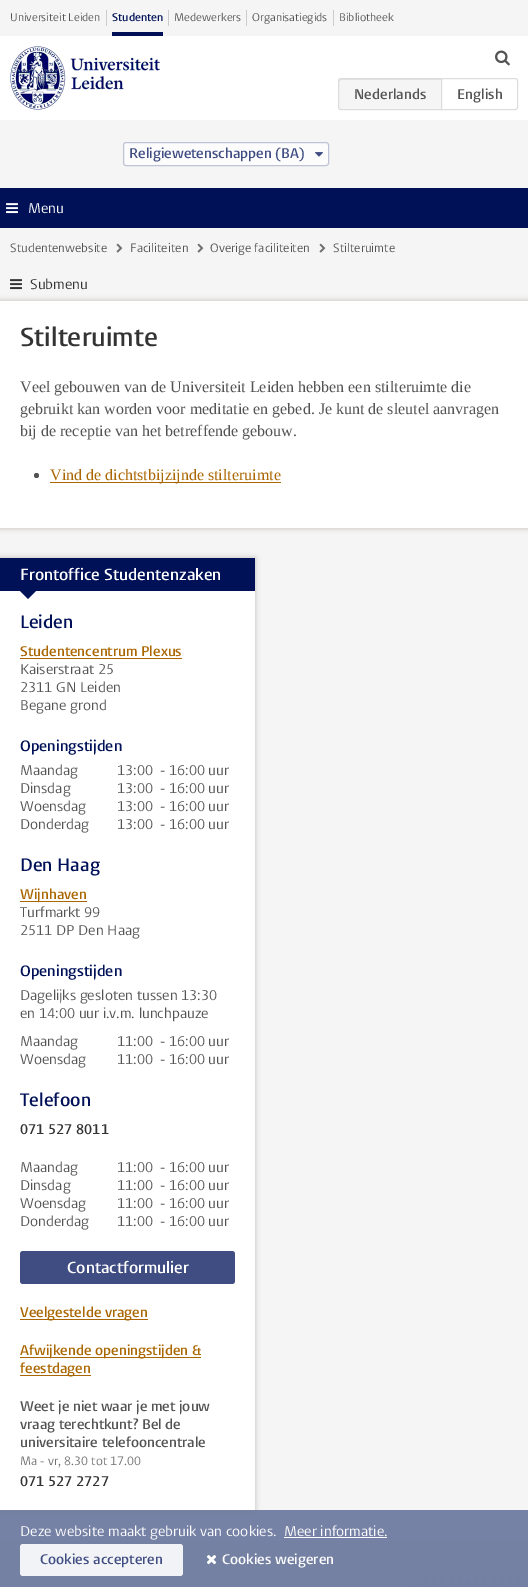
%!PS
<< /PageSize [528 1587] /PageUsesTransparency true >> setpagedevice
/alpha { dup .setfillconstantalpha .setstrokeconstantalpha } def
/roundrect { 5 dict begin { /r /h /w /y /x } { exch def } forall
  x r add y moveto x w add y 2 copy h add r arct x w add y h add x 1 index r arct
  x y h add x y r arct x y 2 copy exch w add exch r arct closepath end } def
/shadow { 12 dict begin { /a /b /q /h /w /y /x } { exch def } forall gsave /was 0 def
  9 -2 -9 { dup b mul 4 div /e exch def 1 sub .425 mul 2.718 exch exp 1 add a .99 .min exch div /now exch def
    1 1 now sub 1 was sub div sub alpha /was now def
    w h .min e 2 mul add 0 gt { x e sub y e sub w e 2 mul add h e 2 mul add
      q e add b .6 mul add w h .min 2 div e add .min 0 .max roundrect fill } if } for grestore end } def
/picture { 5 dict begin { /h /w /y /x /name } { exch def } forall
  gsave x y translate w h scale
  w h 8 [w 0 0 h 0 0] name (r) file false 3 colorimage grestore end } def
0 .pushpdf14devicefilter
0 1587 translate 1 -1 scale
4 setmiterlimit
0.961 setgray
0 0 528 1587 rectfill
1 setgray
0 36 528 84 rectfill
0.8 setgray
106 10 1 16 rectfill
/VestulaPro-Regular [11 0 0 -11 0 0] selectfont
0.325 setgray
10 21 moveto (Universiteit Leiden) show
0.8 setgray
168 10 1 16 rectfill
/VestulaPro-SemiBold [11 0 0 -11 0 0] selectfont
0 0.067 0.345 setrgbcolor
112 21 moveto (Studenten) show
112 32 51 4 rectfill
0.8 setgray
246 10 1 16 rectfill
/VestulaPro-Regular [11 0 0 -11 0 0] selectfont
0.325 setgray
174 21 moveto (Medewerkers) show
0.8 setgray
333 10 1 16 rectfill
0.325 setgray
252 21 moveto (Organisatiegids) show
339 21 moveto (Bibliotheek) show
(img1.rgb) 10 46 150 64 picture
(img2.rgb) 495 50 15 16 picture
0.961 setgray
newpath 341 78 moveto 442 78 lineto 442 110 lineto 341 110 lineto 339.5 110 338 108.5 338 107 curveto 338 81 lineto 338 79.5 339.5 78 341 78 curveto closepath fill
0.882 setgray
newpath 341 80 moveto 441 80 lineto 441 79 lineto 341 79 lineto 339 79 339 81 339 82 curveto 339 81 340 80 341 80 curveto closepath fill
0.867 setgray
newpath 341 78.5 moveto 441.5 78.5 lineto 441.5 109.5 lineto 341 109.5 lineto 339.5 109.5 338.5 108.5 338.5 107 curveto 338.5 81 lineto 338.5 79.5 339.5 78.5 341 78.5 curveto closepath stroke
/VestulaPro-SemiBold [14 0 0 -14 0 0] selectfont
0.325 setgray
354 99 moveto (Nederlands) show
1 setgray
newpath 441.5 78.5 moveto 515 78.5 lineto 516.5 78.5 517.5 79.5 517.5 81 curveto 517.5 107 lineto 517.5 108.5 516.5 109.5 515 109.5 curveto 441.5 109.5 lineto closepath gsave fill grestore
0.867 setgray
stroke
0.325 setgray
457 99 moveto (English) show
0.988 setgray
123.5 142.5 205 23 2.5 roundrect gsave fill grestore
0.749 0.765 0.835 setrgbcolor
stroke
0.251 0.302 0.51 setrgbcolor
129 158 moveto (Religiewetenschappen \(BA\)) show
(img3.rgb) 315 152 8 5 picture
0 0.067 0.345 setrgbcolor
0 188 528 40 rectfill
(img4.rgb) 6 203 12 11 picture
/VestulaPro-Regular [14 0 0 -14 0 0] selectfont
1 setgray
28 213 moveto (Menu) show
/VestulaPro-Regular [12 0 0 -12 0 0] selectfont
0.325 setgray
10 252 moveto (Studentenwebsite) show
(img5.rgb) 116 243 7 10 picture
130 252 moveto (Faciliteiten) show
(img5.rgb) 197 243 7 10 picture
210 252 moveto (Overige faciliteiten) show
(img5.rgb) 319 243 7 10 picture
333 252 moveto (Stilteruimte) show
(img6.rgb) 10 279 12 11 picture
/VestulaPro-Regular [14 0 0 -14 0 0] selectfont
0.2 setgray
30 289 moveto (Submenu) show
0.471 0.431 0.392 setrgbcolor
-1 300 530 229 0 2.5 0.3 shadow
1 setgray
0 301 528 227 rectfill
/VestulaPro-SemiBold [26 0 0 -26 0 0] selectfont
0.2 setgray
20 346 moveto (Stilteruimte) show
/LiberationSerif-Regular [16 0 0 -16 0 0] selectfont
0.325 setgray
20 392 moveto (Veel gebouwen van de Universiteit Leiden hebben een stilteruimte die) show
20 414 moveto (gebruikt kan worden voor meditatie en gebed. Je kunt de sleutel aanvragen) show
20 436 moveto (bij de receptie van het betreffende gebouw.) show
newpath 36.5 475.5 2.5 0 360 arc closepath fill
0.667 0.4 0 setrgbcolor
50 482 231 1 rectfill
50 480 moveto (Vind de dichtstbijzijnde stilteruimte) show
0.471 0.431 0.392 setrgbcolor
-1 557 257 955 0 2.5 0.3 shadow
1 setgray
0 591 255 920 rectfill
0 0.067 0.345 setrgbcolor
0 558 255 33 rectfill
/VestulaPro-SemiBold [16 0 0 -16 0 0] selectfont
1 setgray
20 580 moveto (Frontoffice Studentenzaken) show
0 0.067 0.345 setrgbcolor
newpath 20 591 moveto 36 591 lineto 28 599 lineto closepath fill
/VestulaPro-SemiBold [18 0 0 -18 0 0] selectfont
20 628 moveto (Leiden) show
/VestulaPro-SemiBold [14 0 0 -14 0 0] selectfont
0.667 0.4 0 setrgbcolor
20 656 moveto (Studentencentrum Plexus) show
20 658 162 1 rectfill
/VestulaPro-Regular [14 0 0 -14 0 0] selectfont
0.325 setgray
20 674 moveto (Kaiserstraat 25) show
20 692 moveto (2311 GN Leiden) show
20 710 moveto (Begane grond) show
/VestulaPro-SemiBold [15 0 0 -15 0 0] selectfont
0 0.067 0.345 setrgbcolor
20 751 moveto (Openingstijden) show
/VestulaPro-Regular [14 0 0 -14 0 0] selectfont
0.325 setgray
20 775 moveto (Maandag) show
117 775 moveto (13:00) show
160 775 moveto (- 16:00 uur) show
20 793 moveto (Dinsdag) show
117 793 moveto (13:00) show
160 793 moveto (- 16:00 uur) show
20 811 moveto (Woensdag) show
117 811 moveto (13:00) show
160 811 moveto (- 16:00 uur) show
20 829 moveto (Donderdag) show
117 829 moveto (13:00) show
160 829 moveto (- 16:00 uur) show
/VestulaPro-SemiBold [18 0 0 -18 0 0] selectfont
0 0.067 0.345 setrgbcolor
20 871 moveto (Den Haag) show
0.667 0.4 0 setrgbcolor
20 901 67 1 rectfill
/VestulaPro-SemiBold [14 0 0 -14 0 0] selectfont
20 899 moveto (Wijnhaven) show
/VestulaPro-Regular [14 0 0 -14 0 0] selectfont
0.325 setgray
20 917 moveto (Turfmarkt 99) show
20 935 moveto (2511 DP Den Haag) show
/VestulaPro-SemiBold [15 0 0 -15 0 0] selectfont
0 0.067 0.345 setrgbcolor
20 976 moveto (Openingstijden) show
/VestulaPro-Regular [14 0 0 -14 0 0] selectfont
0.325 setgray
20 1000 moveto (Dagelijks gesloten tussen 13:30) show
20 1018 moveto (en 14:00 uur i.v.m. lunchpauze) show
20 1046 moveto (Maandag) show
117 1046 moveto (11:00) show
160 1046 moveto (- 16:00 uur) show
20 1064 moveto (Woensdag) show
117 1064 moveto (11:00) show
160 1064 moveto (- 16:00 uur) show
/VestulaPro-SemiBold [18 0 0 -18 0 0] selectfont
0 0.067 0.345 setrgbcolor
20 1106 moveto (Telefoon) show
/VestulaPro-SemiBold [14 0 0 -14 0 0] selectfont
0.2 setgray
20 1134 moveto (071 527 8011) show
/VestulaPro-Regular [14 0 0 -14 0 0] selectfont
0.325 setgray
20 1172 moveto (Maandag) show
117 1172 moveto (11:00) show
160 1172 moveto (- 16:00 uur) show
20 1190 moveto (Dinsdag) show
117 1190 moveto (11:00) show
160 1190 moveto (- 16:00 uur) show
20 1208 moveto (Woensdag) show
117 1208 moveto (11:00) show
160 1208 moveto (- 16:00 uur) show
20 1226 moveto (Donderdag) show
117 1226 moveto (11:00) show
160 1226 moveto (- 16:00 uur) show
0.251 0.302 0.51 setrgbcolor
20 1251 215 33 3 roundrect fill
/VestulaPro-SemiBold [16 0 0 -16 0 0] selectfont
1 setgray
67 1273 moveto (Contactformulier) show
0.667 0.4 0 setrgbcolor
20 1319 128 1 rectfill
/VestulaPro-SemiBold [14 0 0 -14 0 0] selectfont
20 1317 moveto (Veelgestelde vragen) show
20 1357 181 1 rectfill
20 1355 moveto (Afwijkende openingstijden &) show
20 1375 71 1 rectfill
20 1373 moveto (feestdagen) show
0.325 setgray
20 1411 moveto (Weet je niet waar je met jouw) show
20 1429 moveto (vraag terechtkunt? Bel de) show
20 1447 moveto (universitaire telefooncentrale) show
/VestulaPro-Regular [12 0 0 -12 0 0] selectfont
0.439 setgray
20 1465 moveto (Ma - vr, 8.30 tot 17.00) show
/VestulaPro-SemiBold [14 0 0 -14 0 0] selectfont
0.2 setgray
20 1486 moveto (071 527 2727) show
0.89 setgray
0 1541 528 46 rectfill
(img8.rgb) 411 1578 117 9 picture
0.9 alpha
0.408 0.463 0.612 setrgbcolor
0 1510 528 77 rectfill
/VestulaPro-Regular [14 0 0 -14 0 0] selectfont
1 alpha
1 setgray
20 1536 moveto (Deze website maakt gebruik van cookies.) show
284 1536 moveto (Meer informatie.) show
284 1537 103 1 rectfill
0.9 alpha
20 1544 163 32 3 roundrect fill
/VestulaPro-SemiBold [14 0 0 -14 0 0] selectfont
1 alpha
0.251 0.302 0.51 setrgbcolor
40 1564 moveto (Cookies accepteren) show
(img7.rgb) 206 1555 11 10 picture
1 setgray
222 1564 moveto (Cookies weigeren) show
.poppdf14devicefilter showpage
